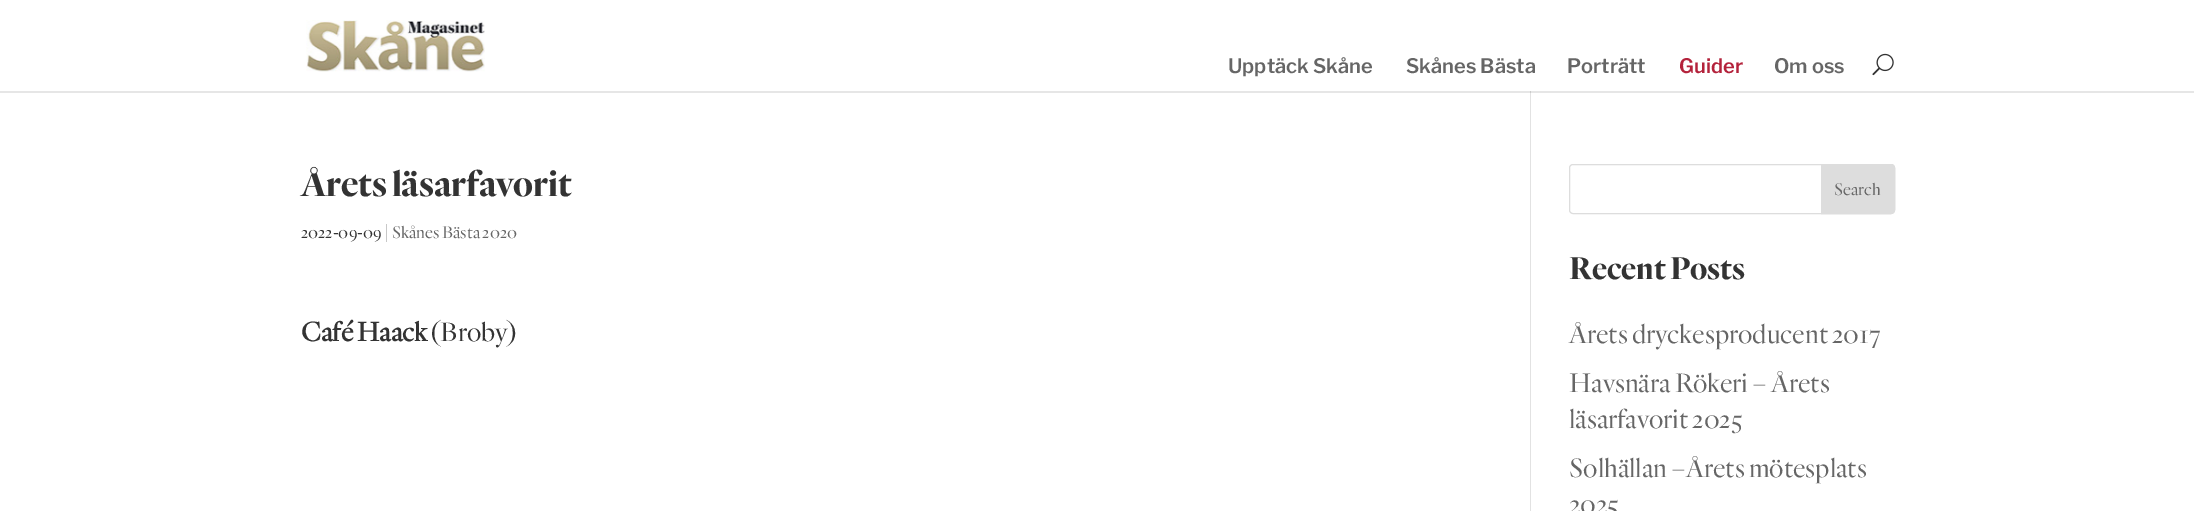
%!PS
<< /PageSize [2194 511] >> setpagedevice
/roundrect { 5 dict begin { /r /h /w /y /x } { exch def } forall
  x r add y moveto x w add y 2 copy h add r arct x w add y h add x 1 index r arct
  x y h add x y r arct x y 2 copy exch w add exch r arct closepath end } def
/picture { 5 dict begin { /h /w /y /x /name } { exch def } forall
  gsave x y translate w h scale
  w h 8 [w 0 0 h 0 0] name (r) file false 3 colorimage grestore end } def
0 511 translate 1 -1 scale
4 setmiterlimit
1 setgray
0 0 2194 511 rectfill
0.902 setgray
0 91 2194 2 rectfill
(img1.rgb) 306 20 179 52 picture
/LibreFranklin-SemiBold [20 0 0 -20 0 0] selectfont
0.4 setgray
1228 73 moveto (Upptäck Skåne) show
1406 73 moveto (Skånes Bästa) show
1567 73 moveto (Porträtt) show
0.706 0.133 0.231 setrgbcolor
1679 73 moveto (Guider) show
0.4 setgray
1774 73 moveto (Om oss) show
(img2.rgb) 1872 53 22 23 picture
0.886 setgray
1530 91 1 420 rectfill
0.796 setgray
1530 91 1 2 rectfill
/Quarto-Bold [37.5 0 0 -37.5 0 0] selectfont
0.2 setgray
301 196 moveto (Årets läsarfavorit) show
/Quarto-Light [17.5 0 0 -17.5 0 0] selectfont
301 238 moveto (2022-09-09 |) show
0.4 setgray
392 238 moveto (Skånes Bästa 2020) show
/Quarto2-Bold [27.5 0 0 -27.5 0 0] selectfont
0.2 setgray
301 341 moveto (Café Haack) show
/Quarto-Light [27.5 0 0 -27.5 0 0] selectfont
430 341 moveto (\(Broby\)) show
0.867 setgray
1569.5 164.5 325 49 3.5 roundrect stroke
newpath 1821.5 164.5 moveto 1891 164.5 lineto 1893 164.5 1894.5 166 1894.5 168 curveto 1894.5 210 lineto 1894.5 212 1893 213.5 1891 213.5 curveto 1821.5 213.5 lineto closepath gsave fill grestore
stroke
/Quarto-Light [17.5 0 0 -17.5 0 0] selectfont
0.4 setgray
1834 195 moveto (Search) show
/Quarto-Bold [32.5 0 0 -32.5 0 0] selectfont
0.2 setgray
1569 279 moveto (Recent Posts) show
/Quarto-Light [27.5 0 0 -27.5 0 0] selectfont
0.4 setgray
1569 343 moveto (Årets dryckesproducent 2017) show
1569 392 moveto (Havsnära Rökeri – Årets) show
1569 428 moveto (läsarfavorit 2025) show
1569 477 moveto (Solhällan –Årets mötesplats) show
1569 513 moveto (2025) show
showpage
